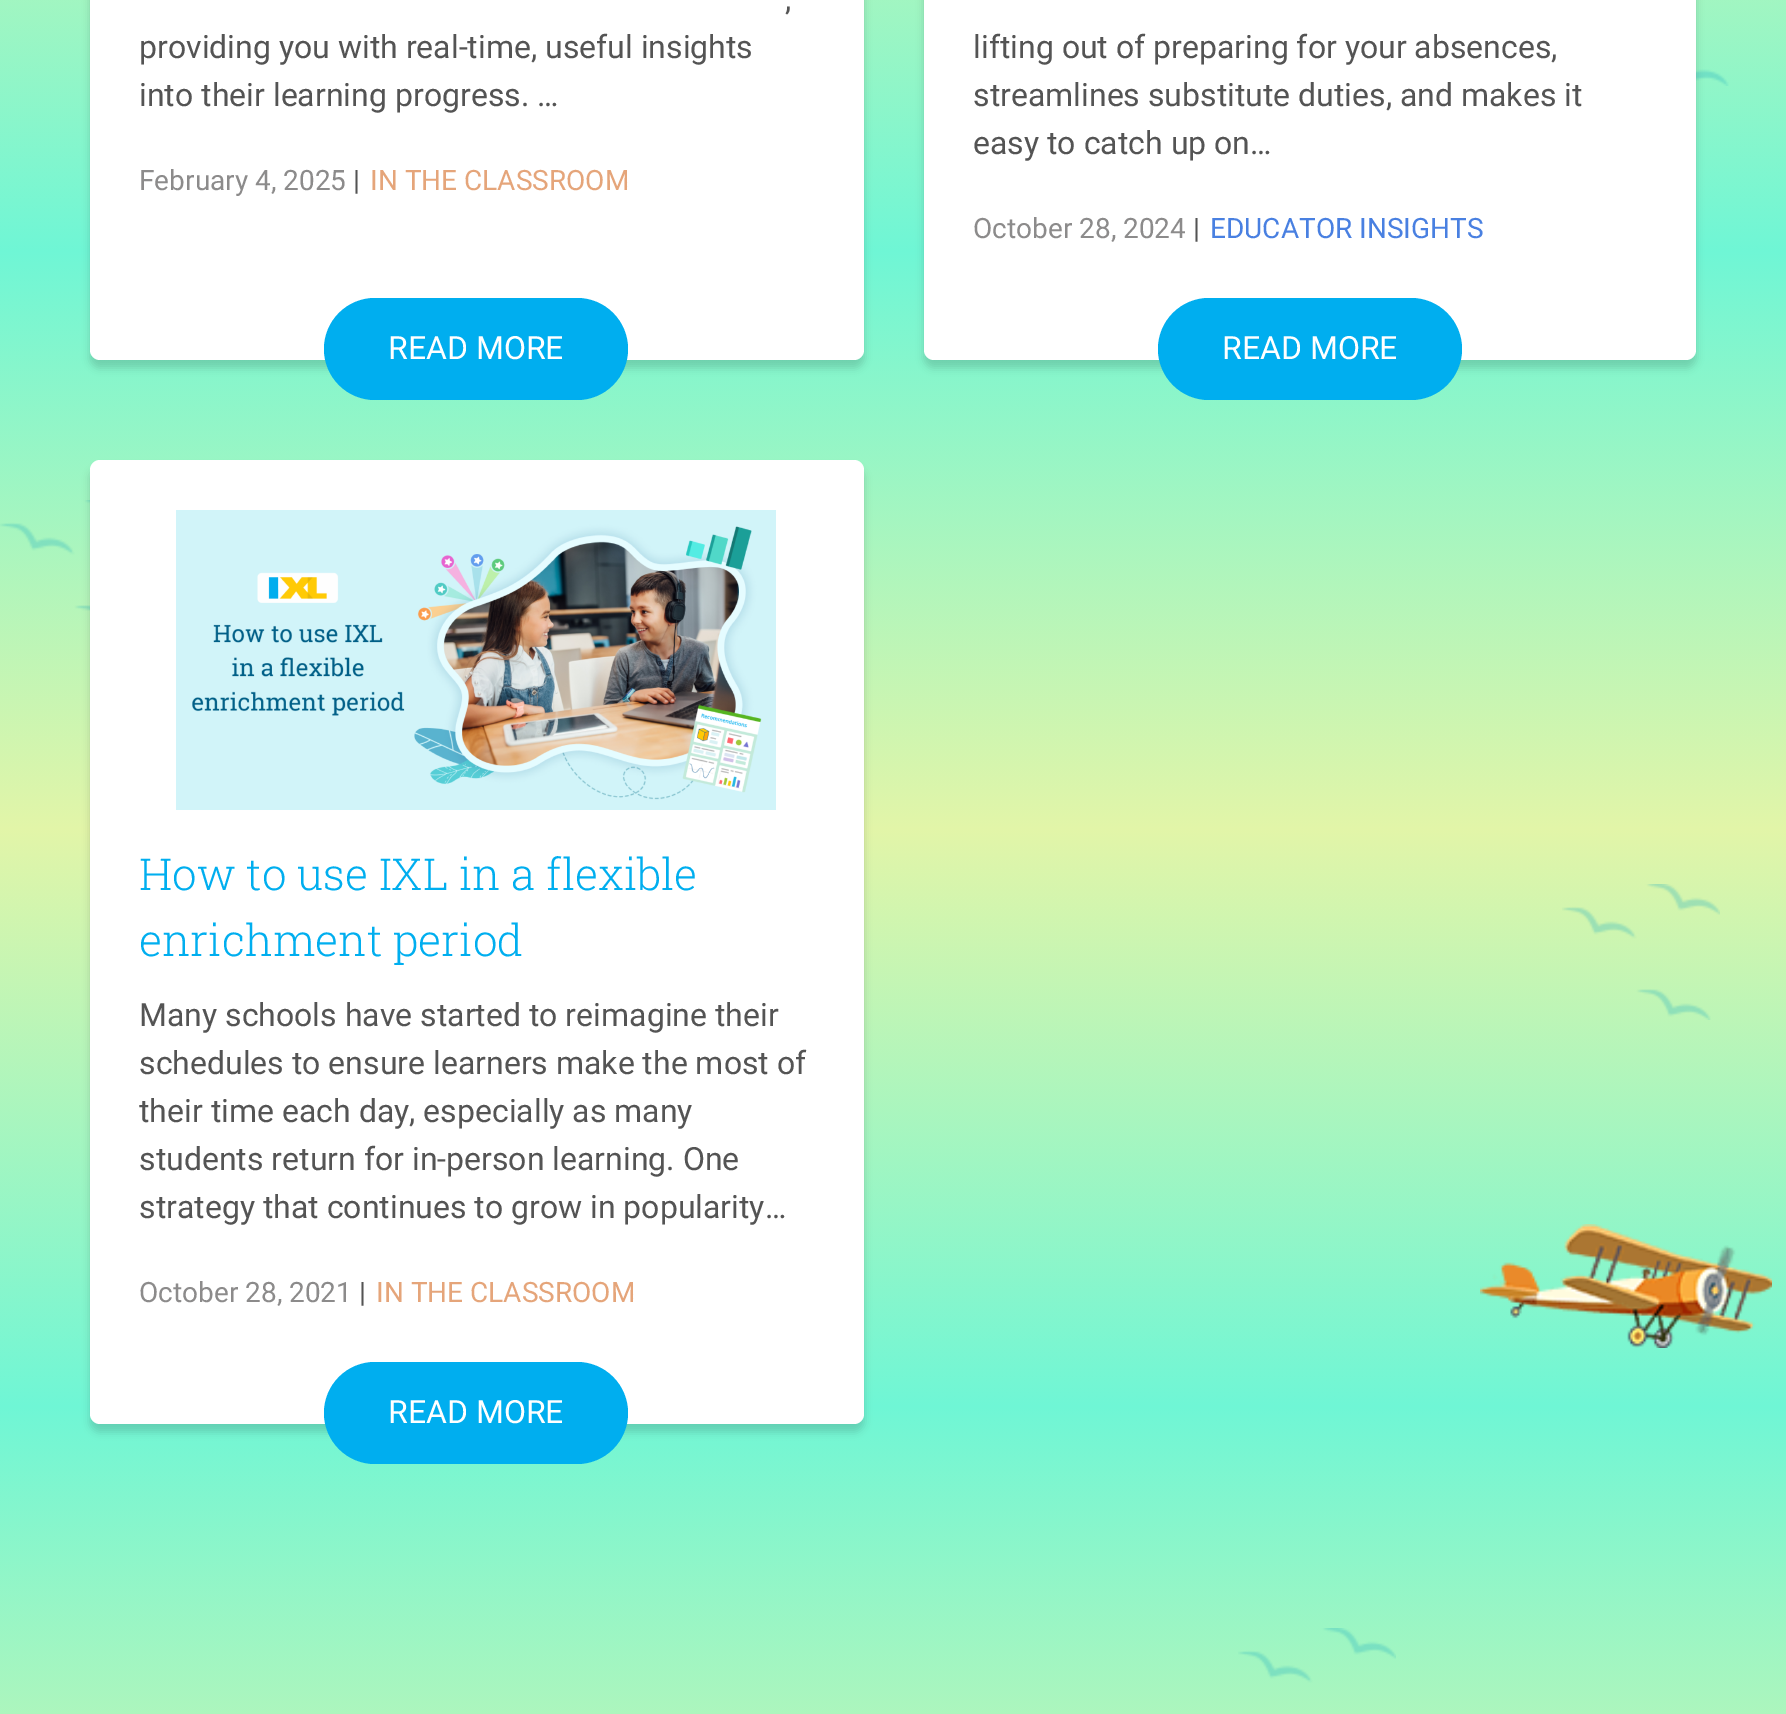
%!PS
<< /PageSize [1786 1714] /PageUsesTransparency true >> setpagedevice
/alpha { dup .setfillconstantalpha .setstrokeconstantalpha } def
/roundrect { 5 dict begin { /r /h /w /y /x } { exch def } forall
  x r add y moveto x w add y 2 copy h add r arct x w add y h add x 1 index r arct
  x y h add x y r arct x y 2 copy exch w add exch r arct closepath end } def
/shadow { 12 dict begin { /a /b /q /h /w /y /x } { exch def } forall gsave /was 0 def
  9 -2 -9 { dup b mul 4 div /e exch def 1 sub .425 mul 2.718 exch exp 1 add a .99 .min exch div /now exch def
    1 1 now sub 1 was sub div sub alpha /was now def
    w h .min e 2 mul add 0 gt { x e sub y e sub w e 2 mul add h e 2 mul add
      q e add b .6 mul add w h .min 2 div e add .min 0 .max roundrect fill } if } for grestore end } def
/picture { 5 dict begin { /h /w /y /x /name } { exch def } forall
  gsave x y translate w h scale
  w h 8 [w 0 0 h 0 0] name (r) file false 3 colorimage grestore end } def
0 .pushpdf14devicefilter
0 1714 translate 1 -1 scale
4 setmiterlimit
1 setgray
0 0 1786 1714 rectfill
(img1.rgb) 0 0 1786 1714 picture
0 setgray
90 -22 774 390 10 4 0.15 shadow
1 setgray
90 -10 774 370 10 roundrect fill
/Roboto-Regular [32 0 0 -32 0 0] selectfont
0.329 setgray
785 10 moveto (,) show
139 58 moveto (providing you with real-time, useful insights) show
139 106 moveto (into their learning progress. …) show
/Roboto-Regular [28 0 0 -28 0 0] selectfont
0.549 0.545 0.545 setrgbcolor
139 190 moveto (February 4, 2025) show
0.329 setgray
353 190 moveto (|) show
0.898 0.647 0.478 setrgbcolor
370 190 moveto (IN THE CLASSROOM) show
0 0.682 0.937 setrgbcolor
324 298 304 102 51 roundrect fill
/Roboto-Regular [32 0 0 -32 0 0] selectfont
1 setgray
388 359 moveto (READ MORE) show
0 setgray
924 -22 772 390 10 4 0.15 shadow
1 setgray
924 -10 772 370 10 roundrect fill
0.329 setgray
973 58 moveto (lifting out of preparing for your absences,) show
973 106 moveto (streamlines substitute duties, and makes it) show
973 154 moveto (easy to catch up on…) show
/Roboto-Regular [28 0 0 -28 0 0] selectfont
0.549 0.545 0.545 setrgbcolor
973 238 moveto (October 28, 2024) show
0.329 setgray
1193 238 moveto (|) show
0.286 0.502 0.882 setrgbcolor
1210 238 moveto (EDUCATOR INSIGHTS) show
0 0.682 0.937 setrgbcolor
1158 298 304 102 51 roundrect fill
/Roboto-Regular [32 0 0 -32 0 0] selectfont
1 setgray
1222 359 moveto (READ MORE) show
0 setgray
90 468 774 964 10 4 0.15 shadow
1 setgray
90 460 774 964 10 roundrect fill
(img2.rgb) 176 510 600 300 picture
/RobotoSlab-Light [44 0 0 -44 0 0] selectfont
0 0.682 0.937 setrgbcolor
139 890 moveto (How to use IXL in a flexible) show
139 956 moveto (enrichment period) show
/Roboto-Regular [32 0 0 -32 0 0] selectfont
0.329 setgray
139 1026 moveto (Many schools have started to reimagine their) show
139 1074 moveto (schedules to ensure learners make the most of) show
139 1122 moveto (their time each day, especially as many) show
139 1170 moveto (students return for in-person learning. One) show
139 1218 moveto (strategy that continues to grow in popularity…) show
/Roboto-Regular [28 0 0 -28 0 0] selectfont
0.549 0.545 0.545 setrgbcolor
139 1302 moveto (October 28, 2021) show
0.329 setgray
359 1302 moveto (|) show
0.898 0.647 0.478 setrgbcolor
376 1302 moveto (IN THE CLASSROOM) show
0 0.682 0.937 setrgbcolor
324 1362 304 102 51 roundrect fill
/Roboto-Regular [32 0 0 -32 0 0] selectfont
1 setgray
388 1423 moveto (READ MORE) show
.poppdf14devicefilter showpage
